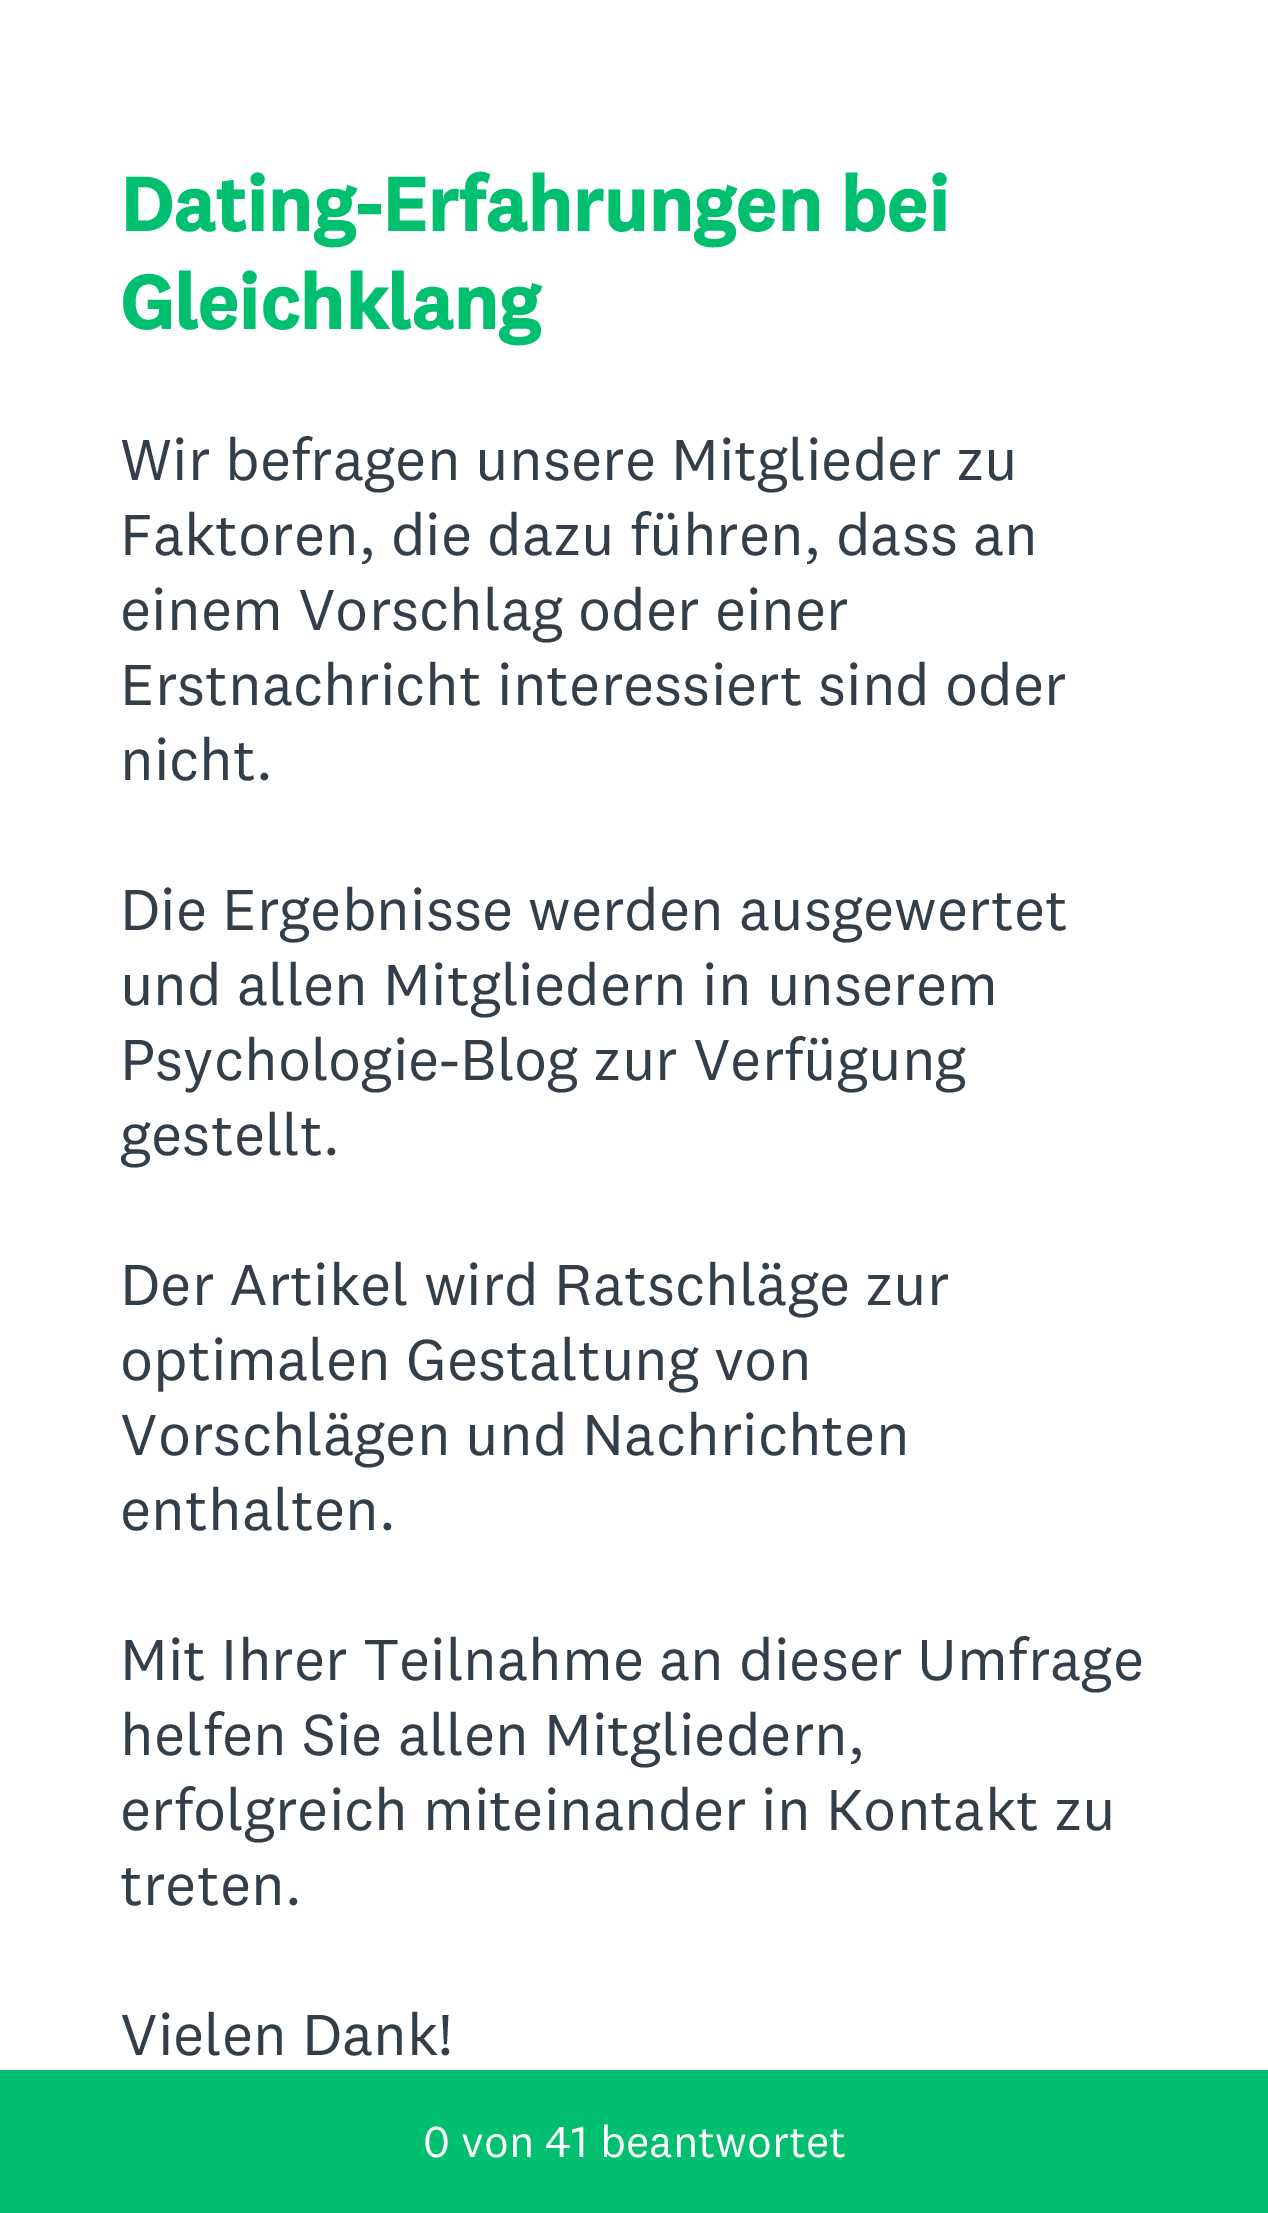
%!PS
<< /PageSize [1268 2213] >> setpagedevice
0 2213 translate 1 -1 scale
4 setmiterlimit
1 setgray
0 0 1268 2213 rectfill
/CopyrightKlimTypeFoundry-Bold [78 0 0 -78 0 0] selectfont
0 0.749 0.435 setrgbcolor
120 231 moveto (Dating-Erfahrungen bei) show
120 329 moveto (Gleichklang) show
/CopyrightKlimTypeFoundry-Regular [60 0 0 -60 0 0] selectfont
0.2 0.243 0.282 setrgbcolor
120 480 moveto (Wir befragen unsere Mitglieder zu) show
120 555 moveto (Faktoren, die dazu führen, dass an) show
120 630 moveto (einem Vorschlag oder einer) show
120 705 moveto (Erstnachricht interessiert sind oder) show
120 780 moveto (nicht.) show
120 930 moveto (Die Ergebnisse werden ausgewertet) show
120 1005 moveto (und allen Mitgliedern in unserem) show
120 1080 moveto (Psychologie-Blog zur Verfügung) show
120 1155 moveto (gestellt.) show
120 1305 moveto (Der Artikel wird Ratschläge zur) show
120 1380 moveto (optimalen Gestaltung von) show
120 1455 moveto (Vorschlägen und Nachrichten) show
120 1530 moveto (enthalten.) show
120 1680 moveto (Mit Ihrer Teilnahme an dieser Umfrage) show
120 1755 moveto (helfen Sie allen Mitgliedern,) show
120 1830 moveto (erfolgreich miteinander in Kontakt zu) show
120 1905 moveto (treten.) show
120 2055 moveto (Vielen Dank!) show
0 0.749 0.435 setrgbcolor
0 2070 1268 143 rectfill
/CopyrightKlimTypeFoundry-Regular [45 0 0 -45 0 0] selectfont
1 setgray
423 2157 moveto (0 von 41 beantwortet) show
showpage
